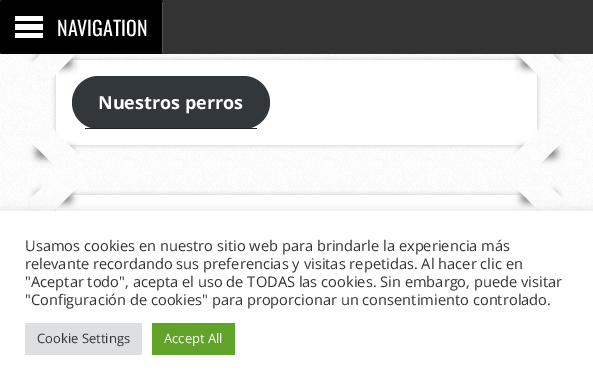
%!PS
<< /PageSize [593 385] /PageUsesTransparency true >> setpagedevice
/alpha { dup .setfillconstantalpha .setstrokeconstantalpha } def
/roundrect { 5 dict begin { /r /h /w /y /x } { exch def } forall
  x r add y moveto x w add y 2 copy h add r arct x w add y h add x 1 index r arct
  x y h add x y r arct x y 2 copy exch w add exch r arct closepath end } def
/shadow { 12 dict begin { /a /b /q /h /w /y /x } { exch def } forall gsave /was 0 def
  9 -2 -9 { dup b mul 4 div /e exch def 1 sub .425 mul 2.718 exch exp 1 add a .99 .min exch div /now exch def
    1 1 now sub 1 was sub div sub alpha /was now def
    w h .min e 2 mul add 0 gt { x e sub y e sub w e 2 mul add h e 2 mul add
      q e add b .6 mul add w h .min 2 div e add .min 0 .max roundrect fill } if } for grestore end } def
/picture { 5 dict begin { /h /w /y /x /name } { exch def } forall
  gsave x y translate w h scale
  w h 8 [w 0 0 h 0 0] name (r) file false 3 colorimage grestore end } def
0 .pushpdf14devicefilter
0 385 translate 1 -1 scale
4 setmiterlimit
1 setgray
0 0 593 385 rectfill
(img1.rgb) 0 54 593 157 picture
0 setgray
56 60 481 85 3 2.5 0.2 shadow
1 setgray
56 60 481 85 rectfill
0.196 0.216 0.235 setrgbcolor
72 76 198 53 26.5 roundrect fill
0 setgray
36 57 36 11 0 3.5 0.5 shadow
1 setgray
newpath 28 67 moveto 63 31 lineto 81 49 lineto 46 84 lineto closepath fill
0 setgray
521 57 36 11 0 3.5 0.5 shadow
1 setgray
newpath 530 31 moveto 565 67 lineto 547 84 lineto 512 49 lineto closepath fill
0.2 setgray
0 0 593 54 rectfill
0 setgray
0 0 163 54 3 roundrect fill
0.333 setgray
162 2 1 51 rectfill
1 setgray
15 16 28 5 rectfill
15 24 28 6 rectfill
15 33 28 5 rectfill
/Oswald-Regular [20 0 0 -20 0 0] selectfont
57 36 moveto (NAVIGATION) show
(img2.rgb) 28 54 47 29 picture
(img3.rgb) 518 54 47 29 picture
0.133 setgray
85 128 172 1 rectfill
/OpenSans-Bold [18 0 0 -18 0 0] selectfont
1 setgray
98 109 moveto (Nuestros perros) show
0 setgray
36 147 36 11 0 3.5 0.5 shadow
1 setgray
newpath 63 174 moveto 28 139 lineto 46 121 lineto 81 157 lineto closepath fill
(img4.rgb) 28 122 51 48 picture
0 setgray
521 147 36 11 0 3.5 0.5 shadow
1 setgray
newpath 565 139 moveto 530 174 lineto 512 157 lineto 547 121 lineto closepath fill
(img5.rgb) 513 122 52 48 picture
0 setgray
56 195 481 32 3 2.5 0.2 shadow
1 setgray
56 195 481 16 rectfill
0 setgray
36 192 36 11 0 3.5 0.5 shadow
1 setgray
newpath 28 201 moveto 63 166 lineto 81 184 lineto 46 219 lineto closepath fill
(img6.rgb) 28 167 52 44 picture
0 setgray
521 192 36 11 0 3.5 0.5 shadow
1 setgray
newpath 530 166 moveto 565 201 lineto 547 219 lineto 512 184 lineto closepath fill
(img7.rgb) 514 167 51 44 picture
newpath 565 221 moveto 530 256 lineto 512 238 lineto 547 203 lineto closepath fill
(img8.rgb) 541 204 14 7 picture
0.675 0.671 0.671 setrgbcolor
0 210 593 174 0 5 0.3 shadow
1 setgray
0 211 593 174 rectfill
/OpenSans-Regular [14.65 0 0 -14.65 0 0] selectfont
0.2 setgray
25 251 moveto (Usamos cookies en nuestro sitio web para brindarle la experiencia más) show
25 269 moveto (relevante recordando sus preferencias y visitas repetidas. Al hacer clic en) show
25 287 moveto ("Aceptar todo", acepta el uso de TODAS las cookies. Sin embargo, puede visitar) show
25 305 moveto ("Configuración de cookies" para proporcionar un consentimiento controlado.) show
0.871 0.875 0.878 setrgbcolor
25 323 117 32 rectfill
/OpenSans-Regular [13 0 0 -13 0 0] selectfont
0.2 setgray
37 343 moveto (Cookie Settings) show
0.38 0.635 0.161 setrgbcolor
152 323 83 32 rectfill
1 setgray
164 343 moveto (Accept All) show
.poppdf14devicefilter showpage
